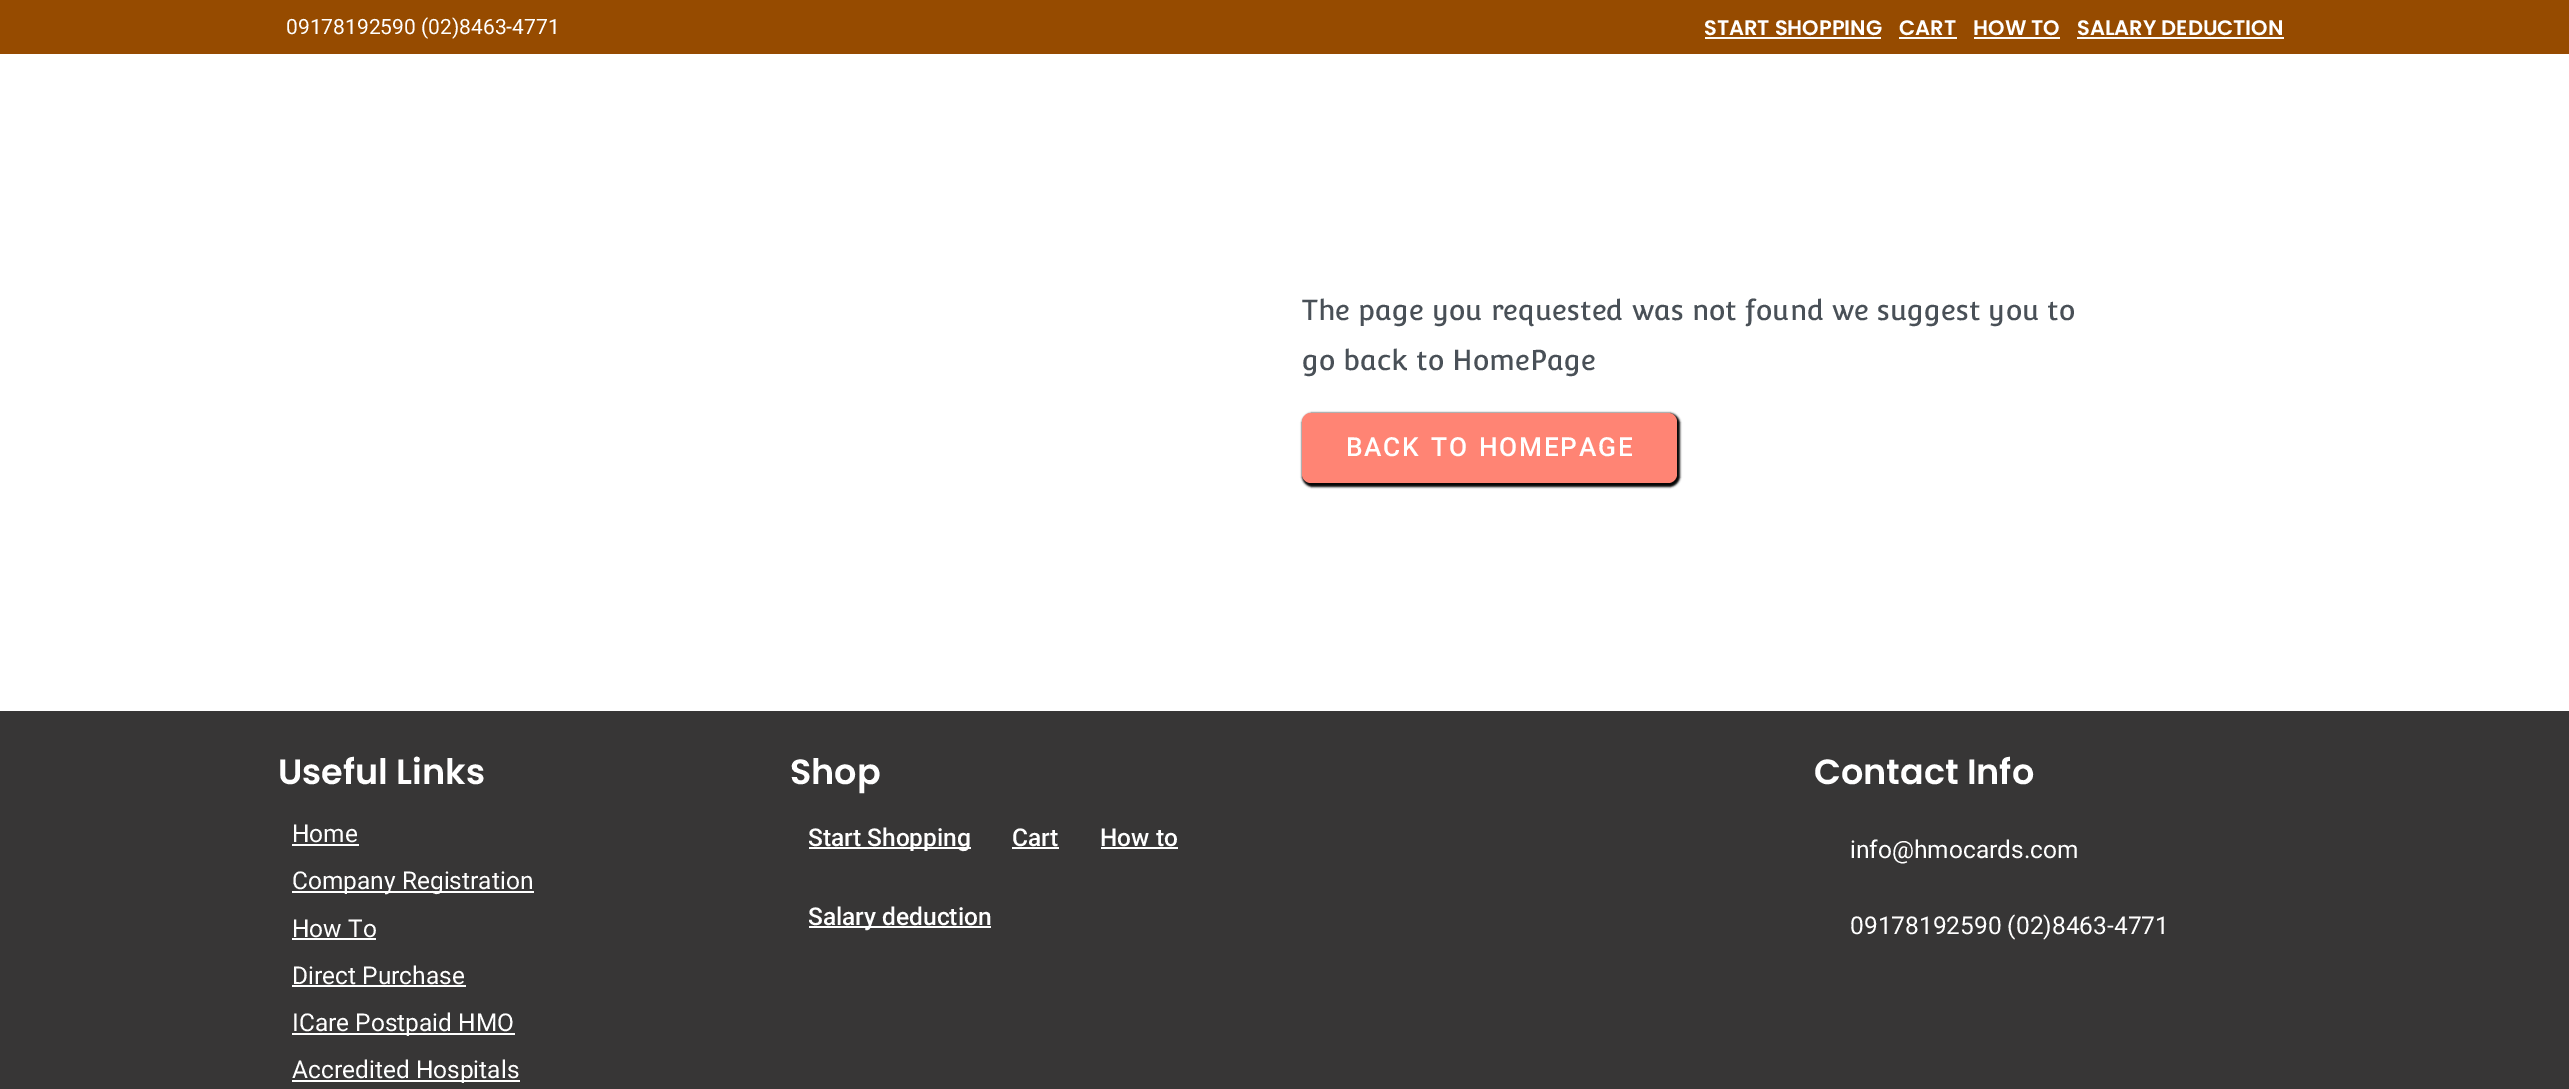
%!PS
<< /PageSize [2569 1089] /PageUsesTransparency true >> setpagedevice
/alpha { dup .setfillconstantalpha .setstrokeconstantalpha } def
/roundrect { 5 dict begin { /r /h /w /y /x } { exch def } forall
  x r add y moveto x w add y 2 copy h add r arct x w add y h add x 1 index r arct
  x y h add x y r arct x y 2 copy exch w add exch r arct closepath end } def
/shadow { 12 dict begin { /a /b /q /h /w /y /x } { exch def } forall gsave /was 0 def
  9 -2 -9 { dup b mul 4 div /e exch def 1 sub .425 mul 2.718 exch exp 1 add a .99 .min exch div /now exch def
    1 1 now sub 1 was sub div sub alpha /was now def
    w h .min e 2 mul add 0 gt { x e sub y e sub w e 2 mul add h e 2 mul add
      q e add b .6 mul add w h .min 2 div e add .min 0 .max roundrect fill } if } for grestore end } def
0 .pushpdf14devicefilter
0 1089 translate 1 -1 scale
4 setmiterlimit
1 setgray
0 0 2569 1089 rectfill
0.588 0.294 0 setrgbcolor
0 0 2569 54 rectfill
/Roboto-Regular [21 0 0 -21 0 0] selectfont
1 setgray
286 34 moveto (09178192590 \(02\)8463-4771) show
/Poppins-SemiBold [21 0 0 -21 0 0] selectfont
1704 35 moveto (START SHOPPING) show
0.992 0.984 0.98 setrgbcolor
1705 37 176 2 rectfill
1 setgray
1899 35 moveto (CART) show
0.992 0.984 0.98 setrgbcolor
1899 37 58 2 rectfill
1 setgray
1973 35 moveto (HOW TO) show
0.992 0.984 0.98 setrgbcolor
1974 37 86 2 rectfill
1 setgray
2077 35 moveto (SALARY DEDUCTION) show
0.992 0.984 0.98 setrgbcolor
2077 37 207 2 rectfill
/Convergence-Regular [28 0 0 -28 0 0] selectfont
0.286 0.314 0.341 setrgbcolor
1302 320 moveto (The page you requested was not found we suggest you to) show
1302 370 moveto (go back to HomePage) show
0 setgray
1302 413 378 74 11 1 1 shadow
1 0.518 0.455 setrgbcolor
1302 413 375 70 9 roundrect fill
/Roboto-Medium [26.25 0 0 -26.25 0 0] selectfont
1 setgray
1346 456 moveto 2 0 32 1.75 0 (BACK TO HOMEPAGE) awidthshow
0.216 0.212 0.212 setrgbcolor
0 711 2569 378 rectfill
/Poppins-SemiBold [35 0 0 -35 0 0] selectfont
1 setgray
278 784 moveto (Useful Links) show
/Roboto-Regular [24.5 0 0 -24.5 0 0] selectfont
292 842 moveto (Home) show
292 844 67 2 rectfill
292 891 242 2 rectfill
292 889 moveto (Company Registration) show
292 937 moveto (How To) show
292 938 84 2 rectfill
292 984 moveto (Direct Purchase) show
292 985 174 2 rectfill
292 1033 223 2 rectfill
292 1031 moveto (ICare Postpaid HMO) show
292 1080 228 2 rectfill
292 1078 moveto (Accredited Hospitals) show
/Poppins-SemiBold [35 0 0 -35 0 0] selectfont
790 784 moveto (Shop) show
809 847 162 2 rectfill
/Roboto-Medium [24.5 0 0 -24.5 0 0] selectfont
808 846 moveto (Start Shopping) show
1012 846 moveto (Cart) show
1012 847 47 2 rectfill
1100 846 moveto (How to) show
1101 847 77 2 rectfill
809 926 182 2 rectfill
808 925 moveto (Salary deduction) show
/Poppins-SemiBold [35 0 0 -35 0 0] selectfont
1814 784 moveto (Contact Info) show
/Roboto-Regular [24.5 0 0 -24.5 0 0] selectfont
1850 858 moveto (info@hmocards.com) show
1850 934 moveto (09178192590 \(02\)8463-4771) show
.poppdf14devicefilter showpage
